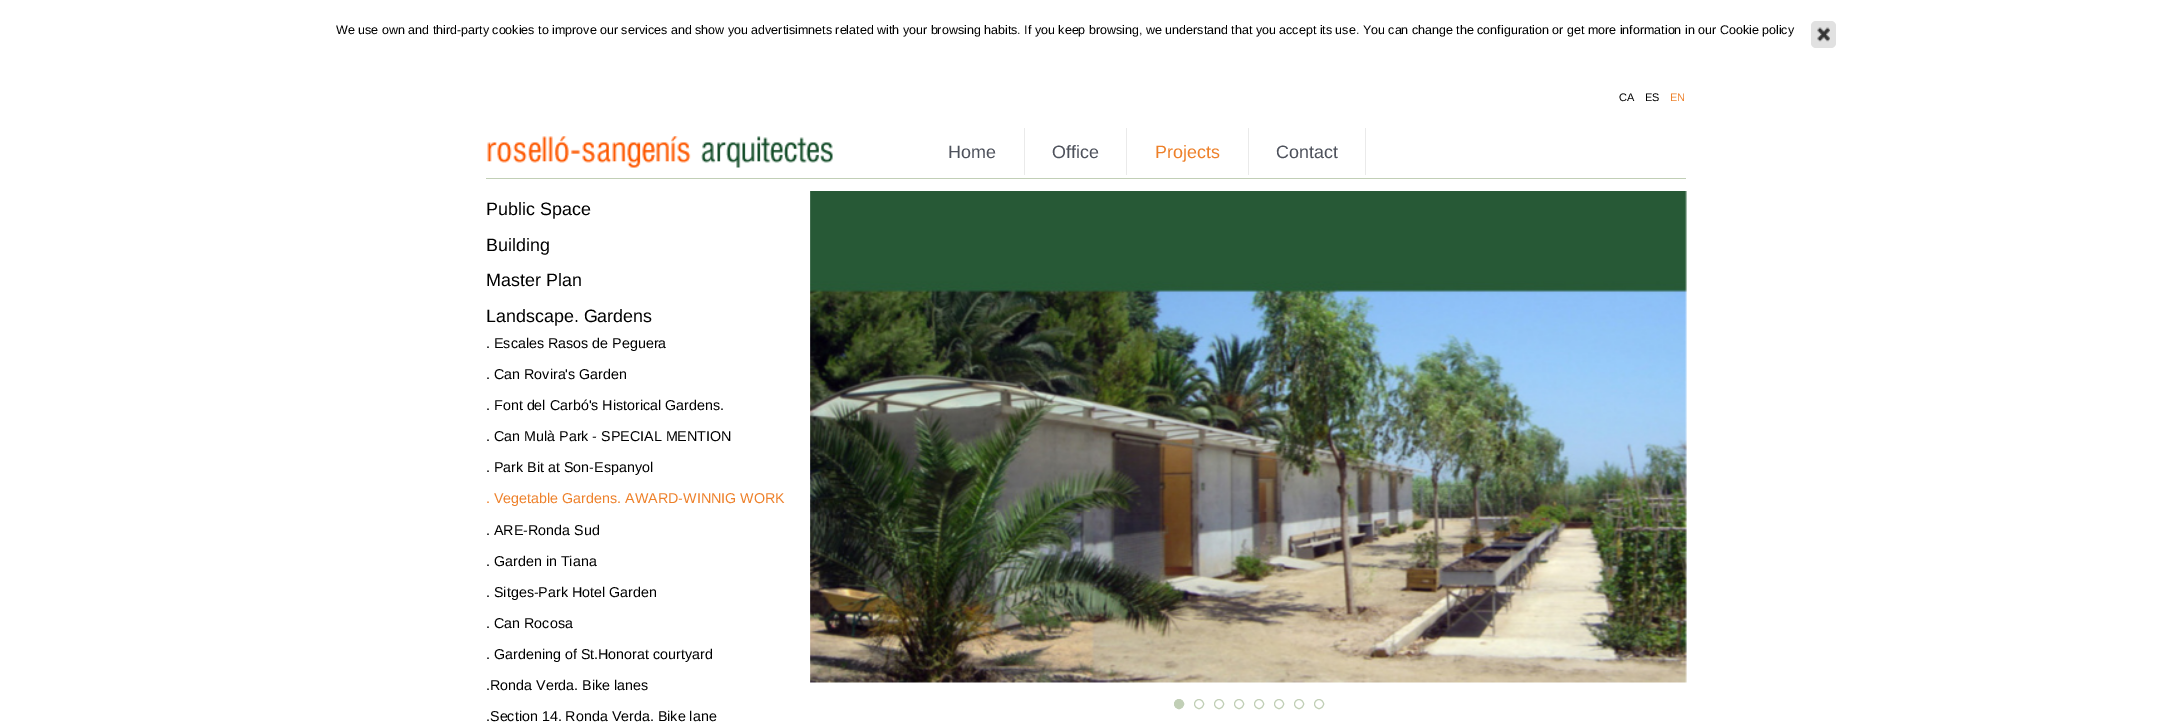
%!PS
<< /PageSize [2171 725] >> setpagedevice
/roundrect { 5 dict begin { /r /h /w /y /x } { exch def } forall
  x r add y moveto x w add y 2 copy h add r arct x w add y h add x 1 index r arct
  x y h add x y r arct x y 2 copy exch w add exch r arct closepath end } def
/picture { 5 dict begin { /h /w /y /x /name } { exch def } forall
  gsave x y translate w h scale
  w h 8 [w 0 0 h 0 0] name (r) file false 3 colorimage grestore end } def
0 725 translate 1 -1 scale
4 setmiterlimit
1 setgray
0 0 2171 725 rectfill
/LiberationSans-Regular [12.5 0 0 -12.5 0 0] selectfont
0 setgray
336 34 moveto (We use own and third-party cookies to improve our services and show you advertisimnets related with your browsing habits. If you keep browsing, we understand that you accept its use. You can change the configuration or get more information in our Cookie policy) show
0.882 setgray
1811 21 25 27 5 roundrect fill
(img1.rgb) 1817 27 13 15 picture
/LiberationSans-Regular [11 0 0 -11 0 0] selectfont
0 setgray
1619 101 moveto (CA) show
1645 101 moveto (ES) show
0.933 0.502 0.161 setrgbcolor
1670 101 moveto (EN) show
0.757 0.812 0.714 setrgbcolor
486 178 1200 1 rectfill
(img2.rgb) 487 136 346 32 picture
0.918 setgray
1024 128 1 47 rectfill
/LiberationSans-Regular [17.9 0 0 -17.9 0 0] selectfont
0.306 0.322 0.361 setrgbcolor
948 158 moveto (Home) show
0.918 setgray
1126 128 1 47 rectfill
0.306 0.322 0.361 setrgbcolor
1052 158 moveto (Office) show
0.918 setgray
1248 128 1 47 rectfill
0.933 0.502 0.161 setrgbcolor
1155 158 moveto (Projects) show
0.918 setgray
1365 128 1 47 rectfill
0.306 0.322 0.361 setrgbcolor
1276 158 moveto (Contact) show
0 setgray
486 215 moveto (Public Space) show
486 251 moveto (Building) show
486 286 moveto (Master Plan) show
486 322 moveto (Landscape. Gardens) show
/LiberationSans-Regular [14.3 0 0 -14.3 0 0] selectfont
486 348 moveto (. Escales Rasos de Peguera) show
486 379 moveto (. Can Rovira's Garden) show
486 410 moveto (. Font del Carbó's Historical Gardens.) show
486 441 moveto (. Can Mulà Park - SPECIAL MENTION) show
486 472 moveto (. Park Bit at Son-Espanyol) show
0.933 0.502 0.161 setrgbcolor
486 503 moveto (. Vegetable Gardens. AWARD-WINNIG WORK) show
0 setgray
486 535 moveto (. ARE-Ronda Sud) show
486 566 moveto (. Garden in Tiana) show
486 597 moveto (. Sitges-Park Hotel Garden) show
486 628 moveto (. Can Rocosa) show
486 659 moveto (. Gardening of St.Honorat courtyard) show
486 690 moveto (.Ronda Verda. Bike lanes) show
486 721 moveto (.Section 14. Ronda Verda. Bike lane) show
(img3.rgb) 810 191 877 492 picture
0.757 0.812 0.714 setrgbcolor
newpath 1179 704 4.5 0 360 arc closepath gsave fill grestore
stroke
newpath 1199 704 4.5 0 360 arc closepath stroke
newpath 1219 704 4.5 0 360 arc closepath stroke
newpath 1239 704 4.5 0 360 arc closepath stroke
newpath 1259 704 4.5 0 360 arc closepath stroke
newpath 1279 704 4.5 0 360 arc closepath stroke
newpath 1299 704 4.5 0 360 arc closepath stroke
newpath 1319 704 4.5 0 360 arc closepath stroke
showpage
